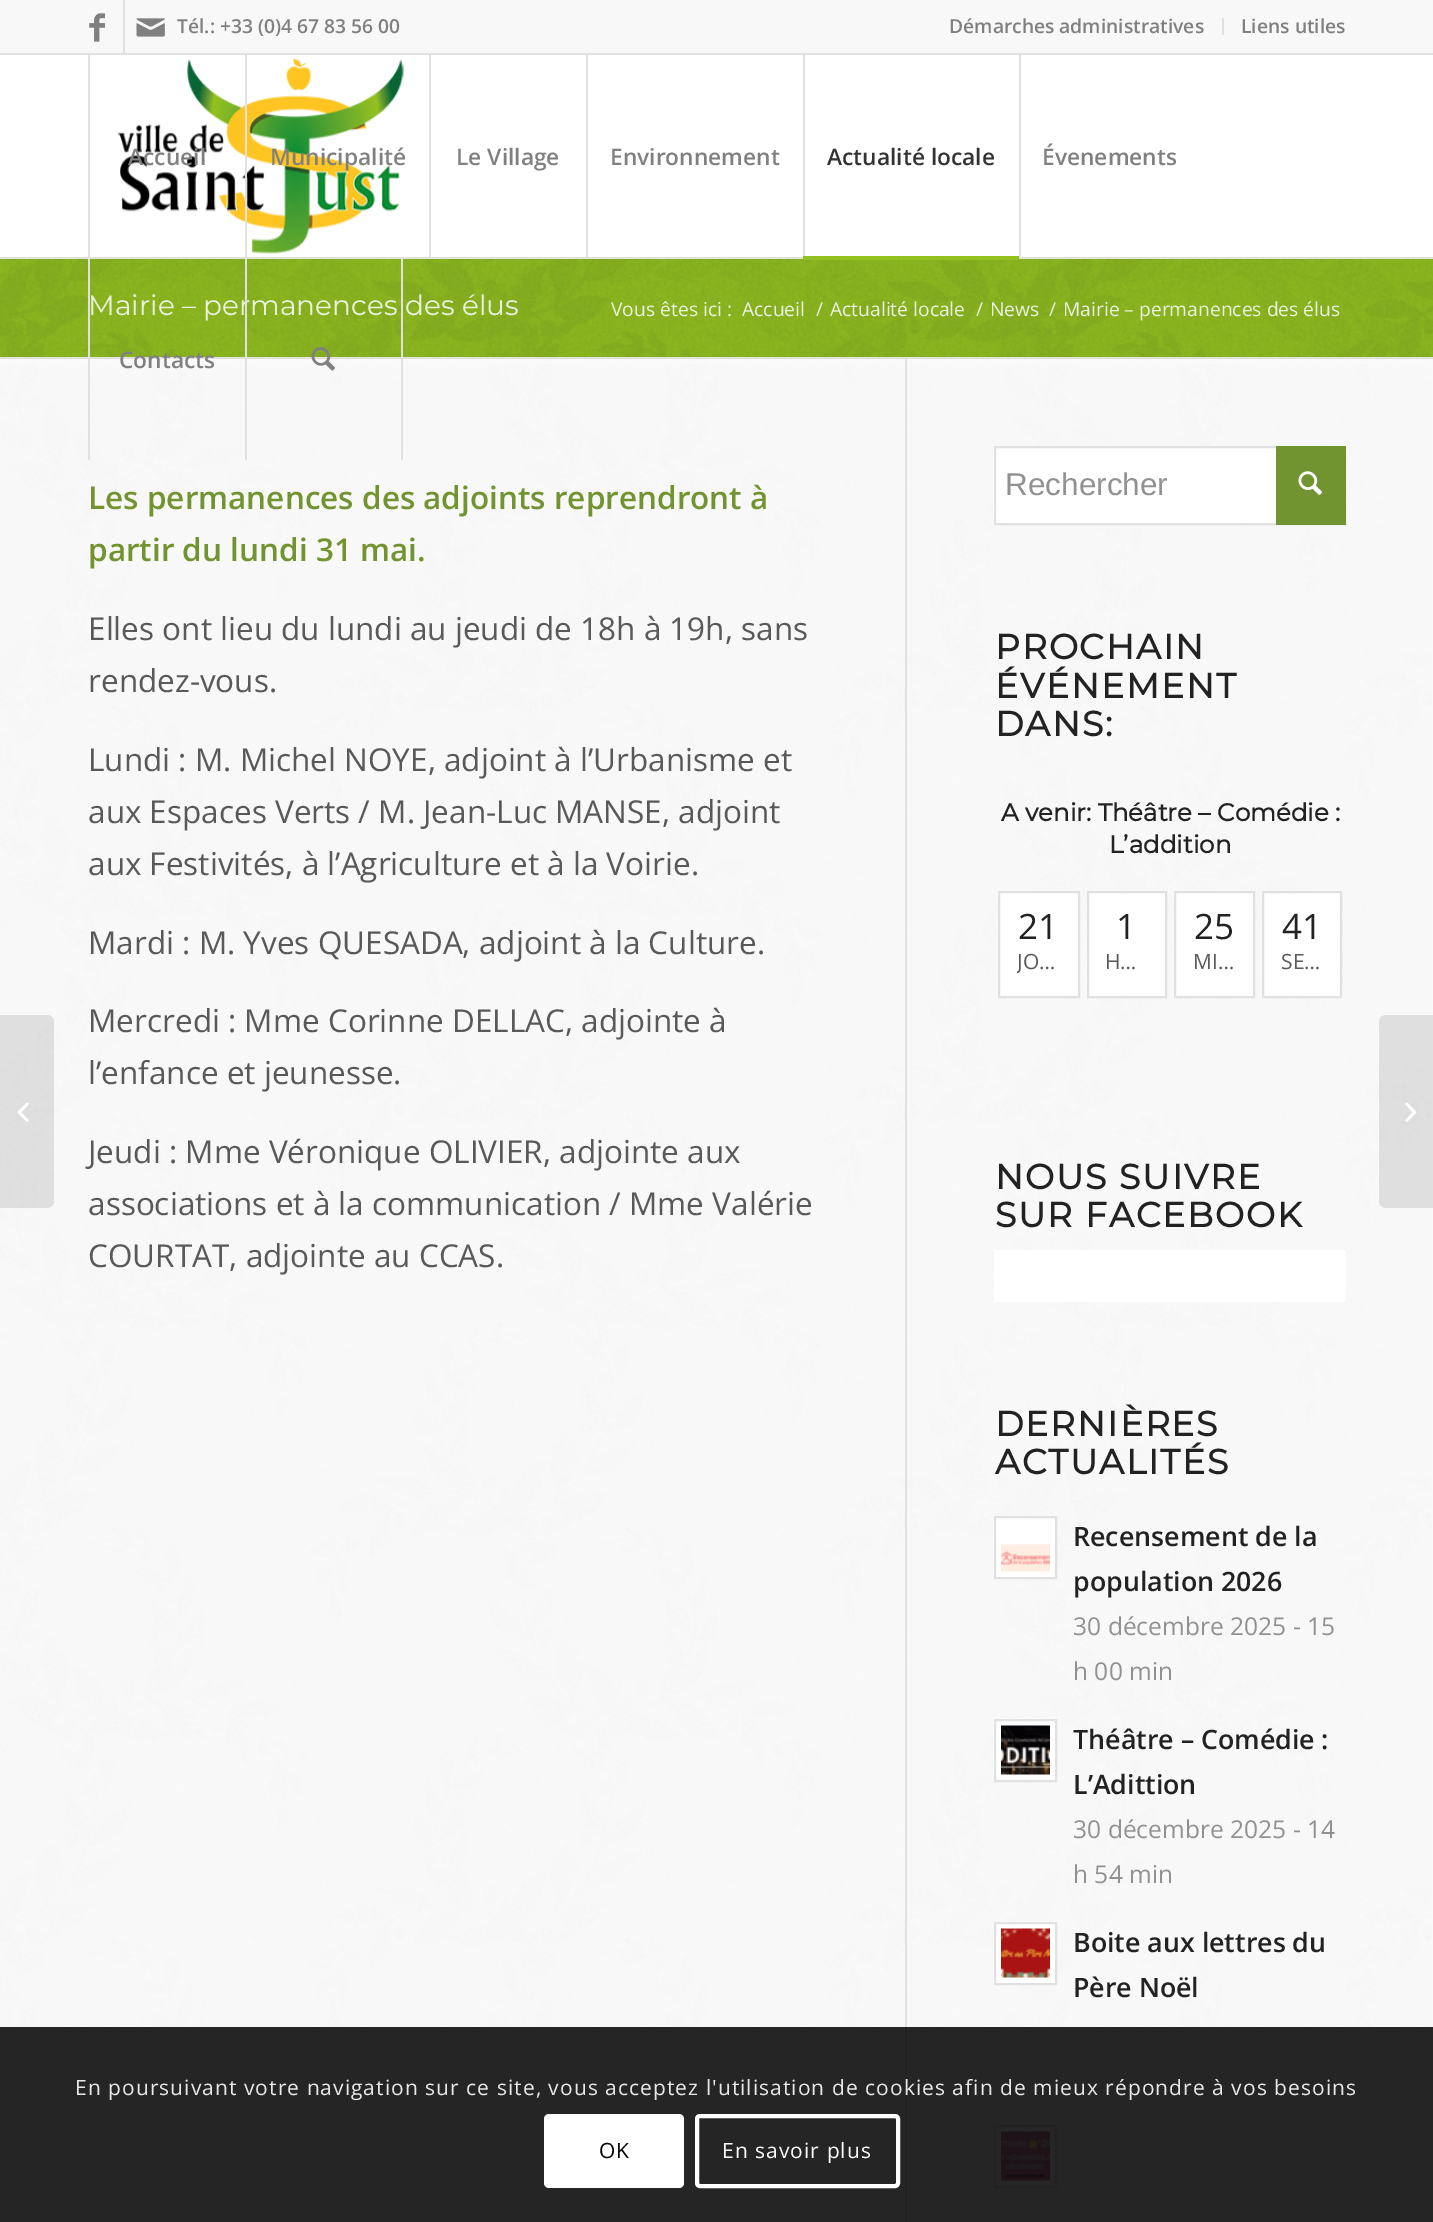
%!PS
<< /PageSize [1433 2222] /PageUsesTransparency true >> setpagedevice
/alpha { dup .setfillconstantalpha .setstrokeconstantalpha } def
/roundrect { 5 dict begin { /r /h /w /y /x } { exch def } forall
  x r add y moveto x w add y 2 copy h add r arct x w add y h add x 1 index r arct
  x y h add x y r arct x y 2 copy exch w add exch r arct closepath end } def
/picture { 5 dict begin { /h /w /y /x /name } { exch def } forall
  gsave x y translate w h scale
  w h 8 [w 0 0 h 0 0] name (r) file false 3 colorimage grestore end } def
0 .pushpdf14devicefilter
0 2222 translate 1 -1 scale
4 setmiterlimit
0.576 0.757 0.125 setrgbcolor
0 0 1433 2222 rectfill
0.973 setgray
0 0 1433 53 rectfill
1 setgray
0 55 1433 202 rectfill
0.882 setgray
0 257 1433 2 rectfill
(img6.rgb) 0 259 1433 98 picture
0.976 setgray
0 359 1433 1863 rectfill
(img7.rgb) 0 364 1432 1858 picture
0.882 setgray
0 357 1433 2 rectfill
88 54 2 406 rectfill
(img3.rgb) 117 58 287 196 picture
/Montserrat-Thin [28 0 0 -28 0 0] selectfont
0.925 0.949 0.882 setrgbcolor
88 315 moveto (Mairie – permanences des élus) show
0.882 setgray
245 54 2 406 rectfill
429 54 2 203 rectfill
586 54 2 203 rectfill
803 54 2 203 rectfill
1019 54 2 203 rectfill
0 53 1433 2 rectfill
123 0 2 53 rectfill
(img1.rgb) 89 13 16 29 picture
(img2.rgb) 136 18 29 19 picture
/OpenSans-SemiBold [19.25 0 0 -19.25 0 0] selectfont
0.502 setgray
177 33 moveto (Tél.: +33 \(0\)4 67 83 56 00) show
0.882 setgray
1222 18 2 17 rectfill
0.502 setgray
949 33 moveto (Démarches administratives) show
1241 33 moveto (Liens utiles) show
/OpenSans-SemiBold [22.75 0 0 -22.75 0 0] selectfont
128 165 moveto (Accueil) show
270 165 moveto (Municipalité) show
456 165 moveto (Le Village) show
610 165 moveto (Environnement) show
0.2 setgray
827 165 moveto (Actualité locale) show
0.576 0.757 0.125 setrgbcolor
803 256 216 4 rectfill
0.502 setgray
1042 165 moveto (Évenements) show
119 368 moveto (Contacts) show
0.882 setgray
401 257 2 203 rectfill
(img4.rgb) 311 347 24 24 picture
0.1 alpha
0 setgray
newpath 0 1015 moveto 47 1015 lineto 51 1015 54 1018 54 1022 curveto 54 1201 lineto 54 1205 51 1208 47 1208 curveto 0 1208 lineto closepath fill
1 alpha
(img5.rgb) 17 1102 12 20 picture
/OpenSans-Regular [19.25 0 0 -19.25 0 0] selectfont
0.925 0.949 0.882 setrgbcolor
611 316 moveto (Vous êtes ici :) show
742 316 moveto (Accueil) show
816 316 moveto (/) show
830 316 moveto (Actualité locale) show
976 316 moveto (/) show
990 316 moveto (News) show
1049 316 moveto (/) show
1063 316 moveto (Mairie – permanences des élus) show
/OpenSans-SemiBold [31.5 0 0 -31.5 0 0] selectfont
0.443 0.58 0.188 setrgbcolor
88 509 moveto (Les permanences des adjoints reprendront à) show
88 561 moveto (partir du lundi 31 mai.) show
/OpenSans-Regular [31.5 0 0 -31.5 0 0] selectfont
0.349 setgray
88 640 moveto (Elles ont lieu du lundi au jeudi de 18h à 19h, sans) show
88 692 moveto (rendez-vous.) show
88 771 moveto (Lundi : M. Michel NOYE, adjoint à l’Urbanisme et) show
88 823 moveto (aux Espaces Verts / M. Jean-Luc MANSE, adjoint) show
88 875 moveto (aux Festivités, à l’Agriculture et à la Voirie.) show
88 954 moveto (Mardi : M. Yves QUESADA, adjoint à la Culture.) show
88 1032 moveto (Mercredi : Mme Corinne DELLAC, adjointe à) show
88 1084 moveto (l’enfance et jeunesse.) show
88 1163 moveto (Jeudi : Mme Véronique OLIVIER, adjointe aux) show
88 1215 moveto (associations et à la communication / Mme Valérie) show
88 1267 moveto (COURTAT, adjointe au CCAS.) show
0.882 setgray
905 359 2 1863 rectfill
1 setgray
996 448 280 75 rectfill
0.882 setgray
2 setlinewidth
995 447 350 77 rectstroke
/LiberationSans-Regular [31.5 0 0 -31.5 0 0] selectfont
0.569 setgray
1005 495 moveto (Rechercher) show
0.443 0.58 0.188 setrgbcolor
1276 446 70 79 rectfill
(img8.rgb) 1298 471 24 24 picture
/Montserrat-Bold [34.75 0 0 -34.75 0 0] selectfont
0.133 setgray
995 659 moveto 1.75 0 (PROCHAIN) ashow
995 698 moveto 1.75 0 (ÉVÉNEMENT) ashow
995 736 moveto 1.75 0 (DANS:) ashow
/Montserrat-Bold [24.5 0 0 -24.5 0 0] selectfont
1001 821 moveto (A venir: Théâtre – Comédie :) show
1109 853 moveto (L’addition) show
1 setgray
newpath 999 892 moveto 1079 892 lineto 1079 997 lineto 999 997 lineto closepath gsave fill grestore
0.882 setgray
stroke
/OpenSans-Regular [35 0 0 -35 0 0] selectfont
0.133 setgray
1018 939 moveto (21) show
gsave
1017 945 44 33 rectclip
/OpenSans-Regular [21 0 0 -21 0 0] selectfont
0.349 setgray
1017 969 moveto (JO…) show
grestore
1 setgray
newpath 1088 892 moveto 1166 892 lineto 1166 997 lineto 1088 997 lineto closepath gsave fill grestore
0.882 setgray
stroke
0.133 setgray
1116 939 moveto (1) show
/OpenSans-Regular [21 0 0 -21 0 0] selectfont
0.349 setgray
1105 969 moveto (H…) show
1 setgray
newpath 1175 892 moveto 1254 892 lineto 1254 997 lineto 1175 997 lineto closepath gsave fill grestore
0.882 setgray
stroke
/OpenSans-Regular [35 0 0 -35 0 0] selectfont
0.133 setgray
1194 939 moveto (25) show
/OpenSans-Regular [21 0 0 -21 0 0] selectfont
0.349 setgray
1193 969 moveto (MI…) show
1 setgray
newpath 1263 892 moveto 1341 892 lineto 1341 997 lineto 1263 997 lineto closepath gsave fill grestore
0.882 setgray
stroke
/OpenSans-Regular [35 0 0 -35 0 0] selectfont
0.133 setgray
1282 939 moveto (41) show
/OpenSans-Regular [21 0 0 -21 0 0] selectfont
0.349 setgray
1281 969 moveto (SE…) show
/Montserrat-Bold [34.75 0 0 -34.75 0 0] selectfont
0.133 setgray
995 1189 moveto 1.75 0 (NOUS SUIVRE) ashow
995 1227 moveto 1.75 0 (SUR FACEBOOK) ashow
1 setgray
994 1250 352 52 rectfill
0.133 setgray
995 1436 moveto 1.75 0 (DERNIÈRES) ashow
995 1474 moveto 1.75 0 (ACTUALITÉS) ashow
1 setgray
newpath 995 1517 moveto 1056 1517 lineto 1056 1578 lineto 995 1578 lineto closepath gsave fill grestore
0.882 setgray
stroke
(img9.rgb) 1001 1544 49 28 picture
/OpenSans-SemiBold [26.75 0 0 -26.75 0 0] selectfont
0.133 setgray
1073 1546 moveto (Recensement de la) show
1073 1591 moveto (population 2026) show
/OpenSans-Regular [24.6 0 0 -24.6 0 0] selectfont
0.569 setgray
1073 1635 moveto (30 décembre 2025 - 15) show
1073 1680 moveto (h 00 min) show
1 setgray
newpath 995 1720 moveto 1056 1720 lineto 1056 1781 lineto 995 1781 lineto closepath gsave fill grestore
0.882 setgray
stroke
(img10.rgb) 1001 1725 49 50 picture
/OpenSans-SemiBold [26.75 0 0 -26.75 0 0] selectfont
0.133 setgray
1073 1749 moveto (Théâtre – Comédie :) show
1073 1794 moveto (L’Adittion) show
/OpenSans-Regular [24.6 0 0 -24.6 0 0] selectfont
0.569 setgray
1073 1838 moveto (30 décembre 2025 - 14) show
1073 1883 moveto (h 54 min) show
1 setgray
newpath 995 1923 moveto 1056 1923 lineto 1056 1984 lineto 995 1984 lineto closepath gsave fill grestore
0.882 setgray
stroke
(img11.rgb) 1001 1928 49 50 picture
/OpenSans-SemiBold [26.75 0 0 -26.75 0 0] selectfont
0.133 setgray
1073 1952 moveto (Boite aux lettres du) show
1073 1997 moveto (Père Noël) show
1 setgray
newpath 995 2126 moveto 1056 2126 lineto 1056 2187 lineto 995 2187 lineto closepath gsave fill grestore
0.882 setgray
stroke
(img12.rgb) 1001 2131 49 50 picture
0.1 alpha
0 setgray
newpath 1386 1015 moveto 1433 1015 lineto 1433 1208 lineto 1386 1208 lineto 1382 1208 1379 1205 1379 1201 curveto 1379 1022 lineto 1379 1018 1382 1015 1386 1015 curveto closepath fill
1 alpha
(img13.rgb) 1405 1102 12 20 picture
0.85 alpha
0 2027 1433 195 rectfill
/OpenSans-Regular [21 0 0 -21 0 0] selectfont
1 alpha
0.914 setgray
75 2095 moveto 1.05 0 (En poursuivant votre navigation sur ce site, vous acceptez l'utilisation de cookies afin de mieux répondre à vos besoins) ashow
1 setgray
544 2114 140 74 5 roundrect fill
0 setgray
599 2158 moveto 1.05 0 (OK) ashow
1 setgray
4 setlinewidth
697 2116 201 70 3 roundrect stroke
722 2158 moveto 1.05 0 (En savoir plus) ashow
.poppdf14devicefilter showpage
